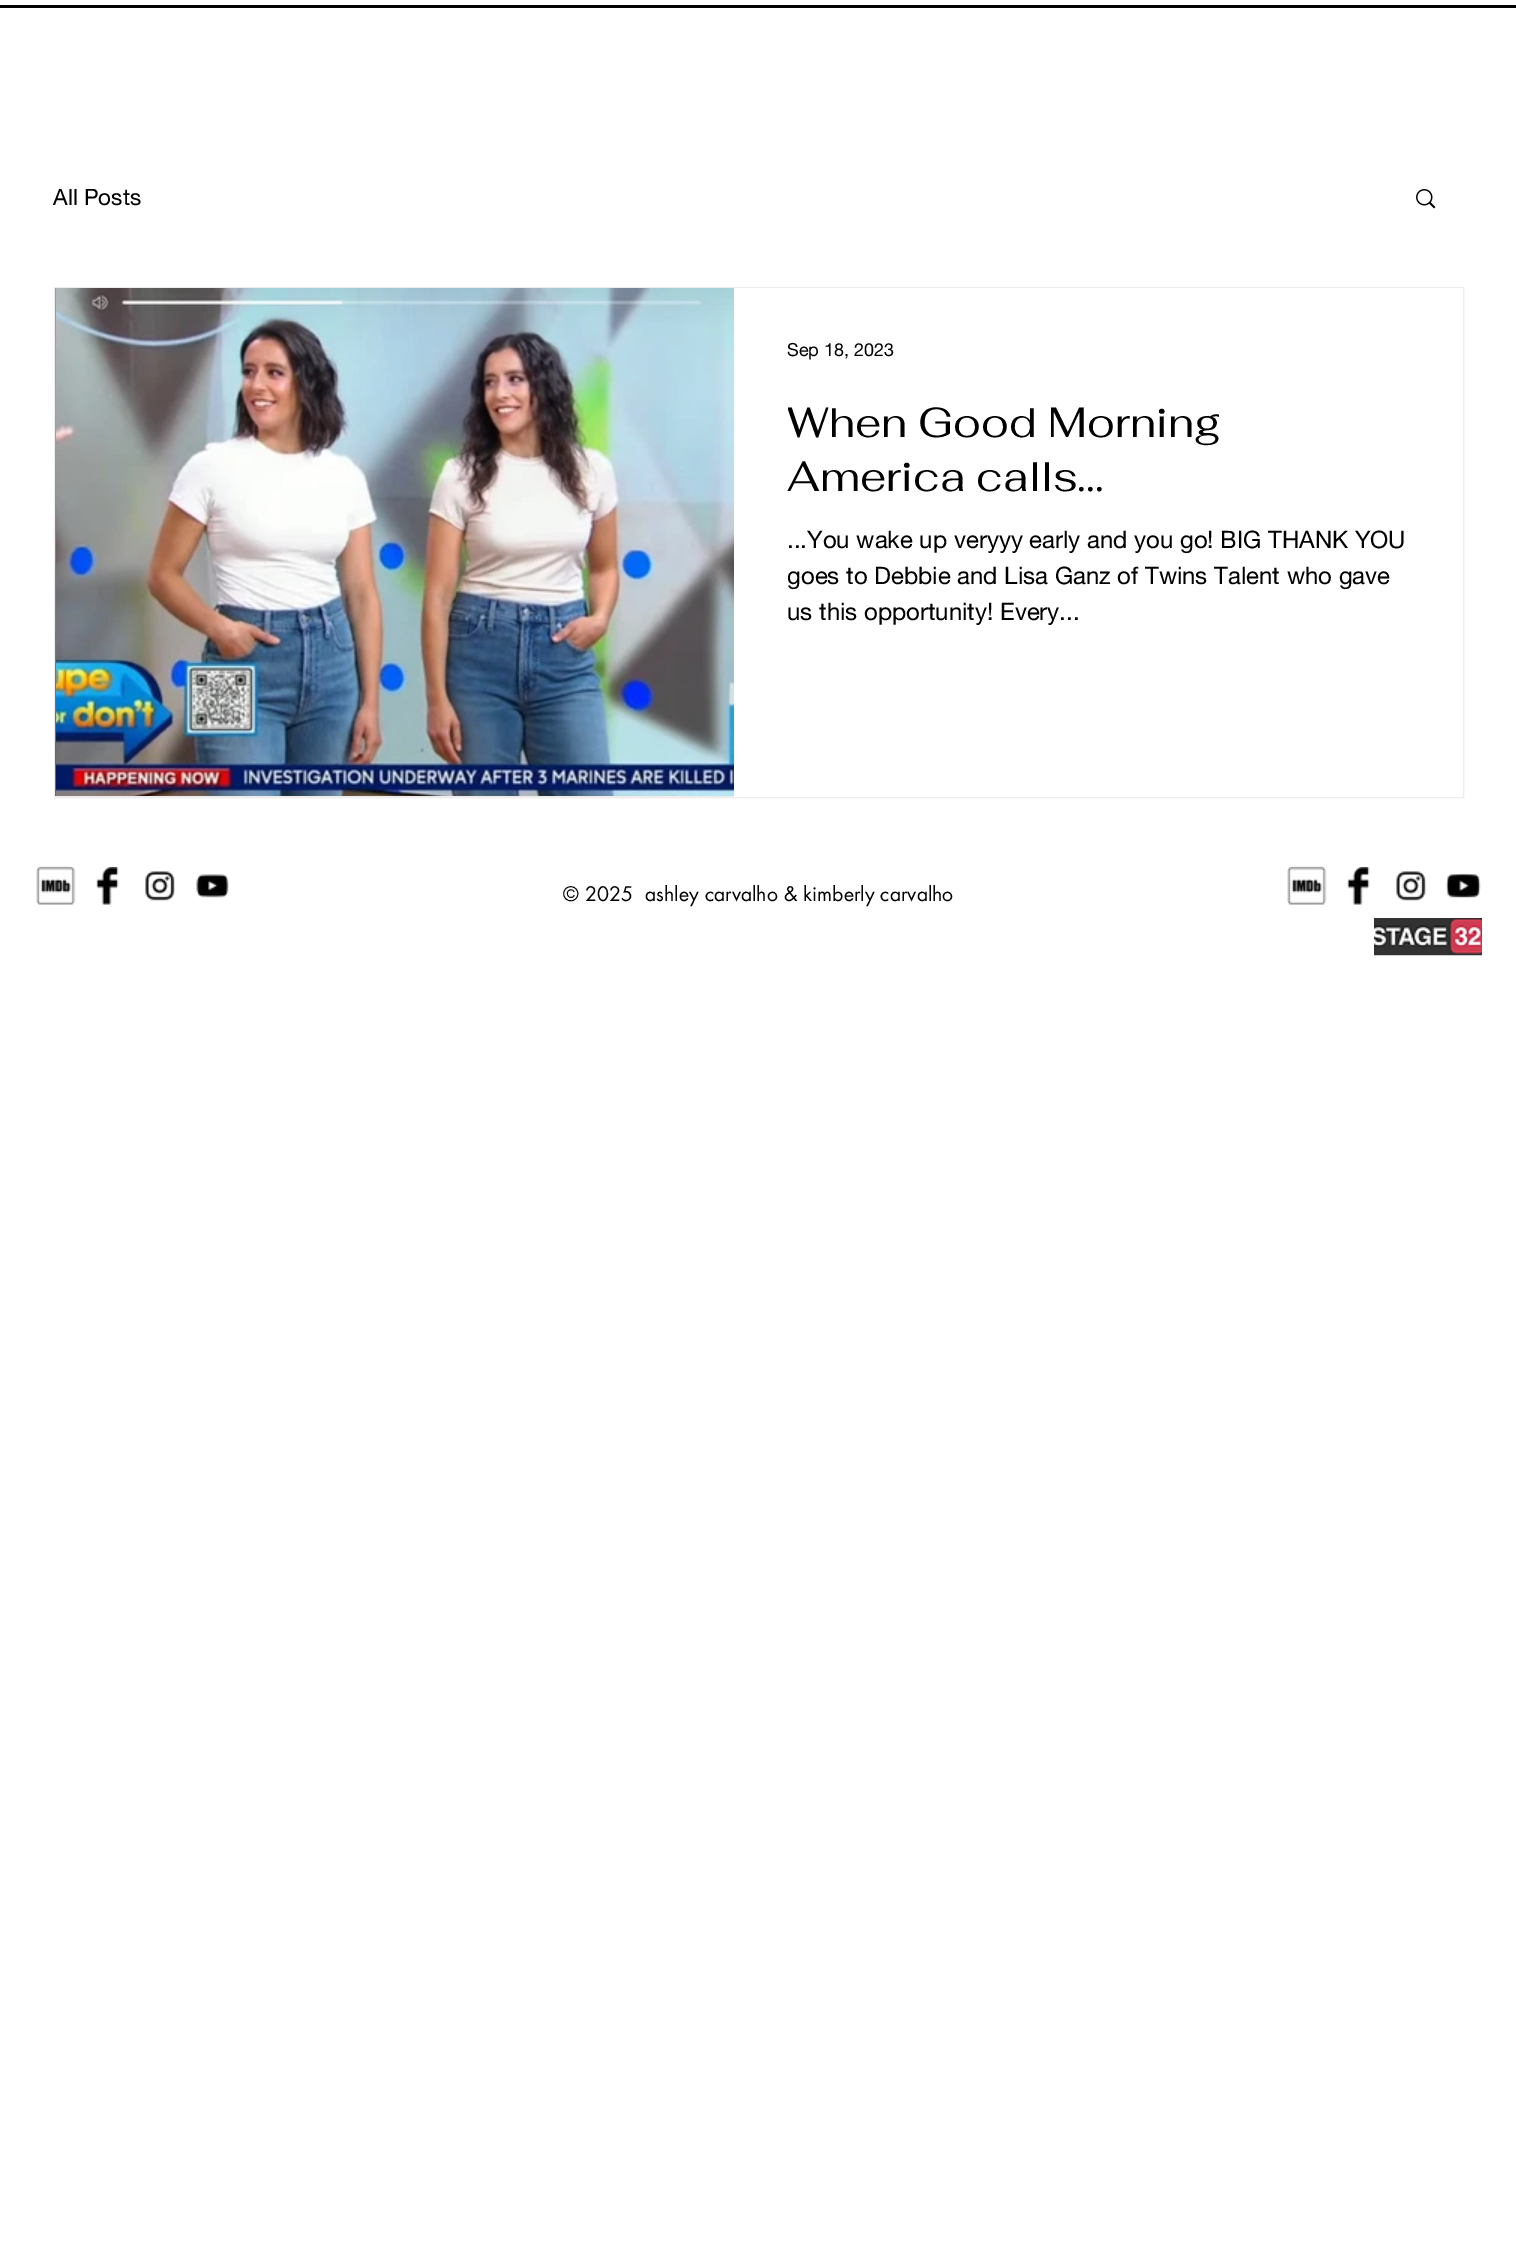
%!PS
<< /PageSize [1516 2267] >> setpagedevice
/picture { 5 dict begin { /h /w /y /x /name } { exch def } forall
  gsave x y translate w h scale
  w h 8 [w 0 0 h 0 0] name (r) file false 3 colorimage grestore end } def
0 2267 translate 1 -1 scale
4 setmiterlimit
1 setgray
0 0 1516 2267 rectfill
0 setgray
0 5 1516 3 rectfill
/helveticaneue-Regular [22.5 0 0 -22.5 0 0] selectfont
53 205 moveto (All Posts) show
(img1.rgb) 1416 189 20 20 picture
0.933 0.925 0.925 setrgbcolor
2 setlinewidth
55 288 1408 509 rectstroke
(img2.rgb) 55 288 1 508 picture
(img3.rgb) 56 288 678 508 picture
1 setgray
734 288 729 509 rectfill
/helveticaneue-Regular [18 0 0 -18 0 0] selectfont
0 setgray
787 356 moveto (Sep 18, 2023) show
gsave
788 395 621 108 rectclip
/Fahkwang-Regular [42 0 0 -42 0 0] selectfont
787 437 moveto (When Good Morning) show
grestore
/Fahkwang-Regular [42 0 0 -42 0 0] selectfont
787 491 moveto (America calls...) show
/helveticaneue-Regular [24 0 0 -24 0 0] selectfont
787 548 moveto (...You wake up veryyy early and you go! BIG THANK YOU) show
gsave
788 521 621 108 rectclip
787 584 moveto (goes to Debbie and Lisa Ganz of Twins Talent who gave) show
grestore
787 620 moveto (us this opportunity! Every...) show
(img4.rgb) 36 866 40 39 picture
(img5.rgb) 96 867 23 38 picture
(img6.rgb) 145 871 30 30 picture
(img7.rgb) 196 874 33 24 picture
/futura-Regular [19.5 0 0 -19.5 0 0] selectfont
563 901 moveto (© 2025) show
645 901 moveto (ashley carvalho & kimberly carvalho) show
(img4.rgb) 1287 866 40 39 picture
(img8.rgb) 1347 867 23 38 picture
(img6.rgb) 1396 871 30 30 picture
(img9.rgb) 1446 873 35 25 picture
(img10.rgb) 1374 918 108 38 picture
showpage
